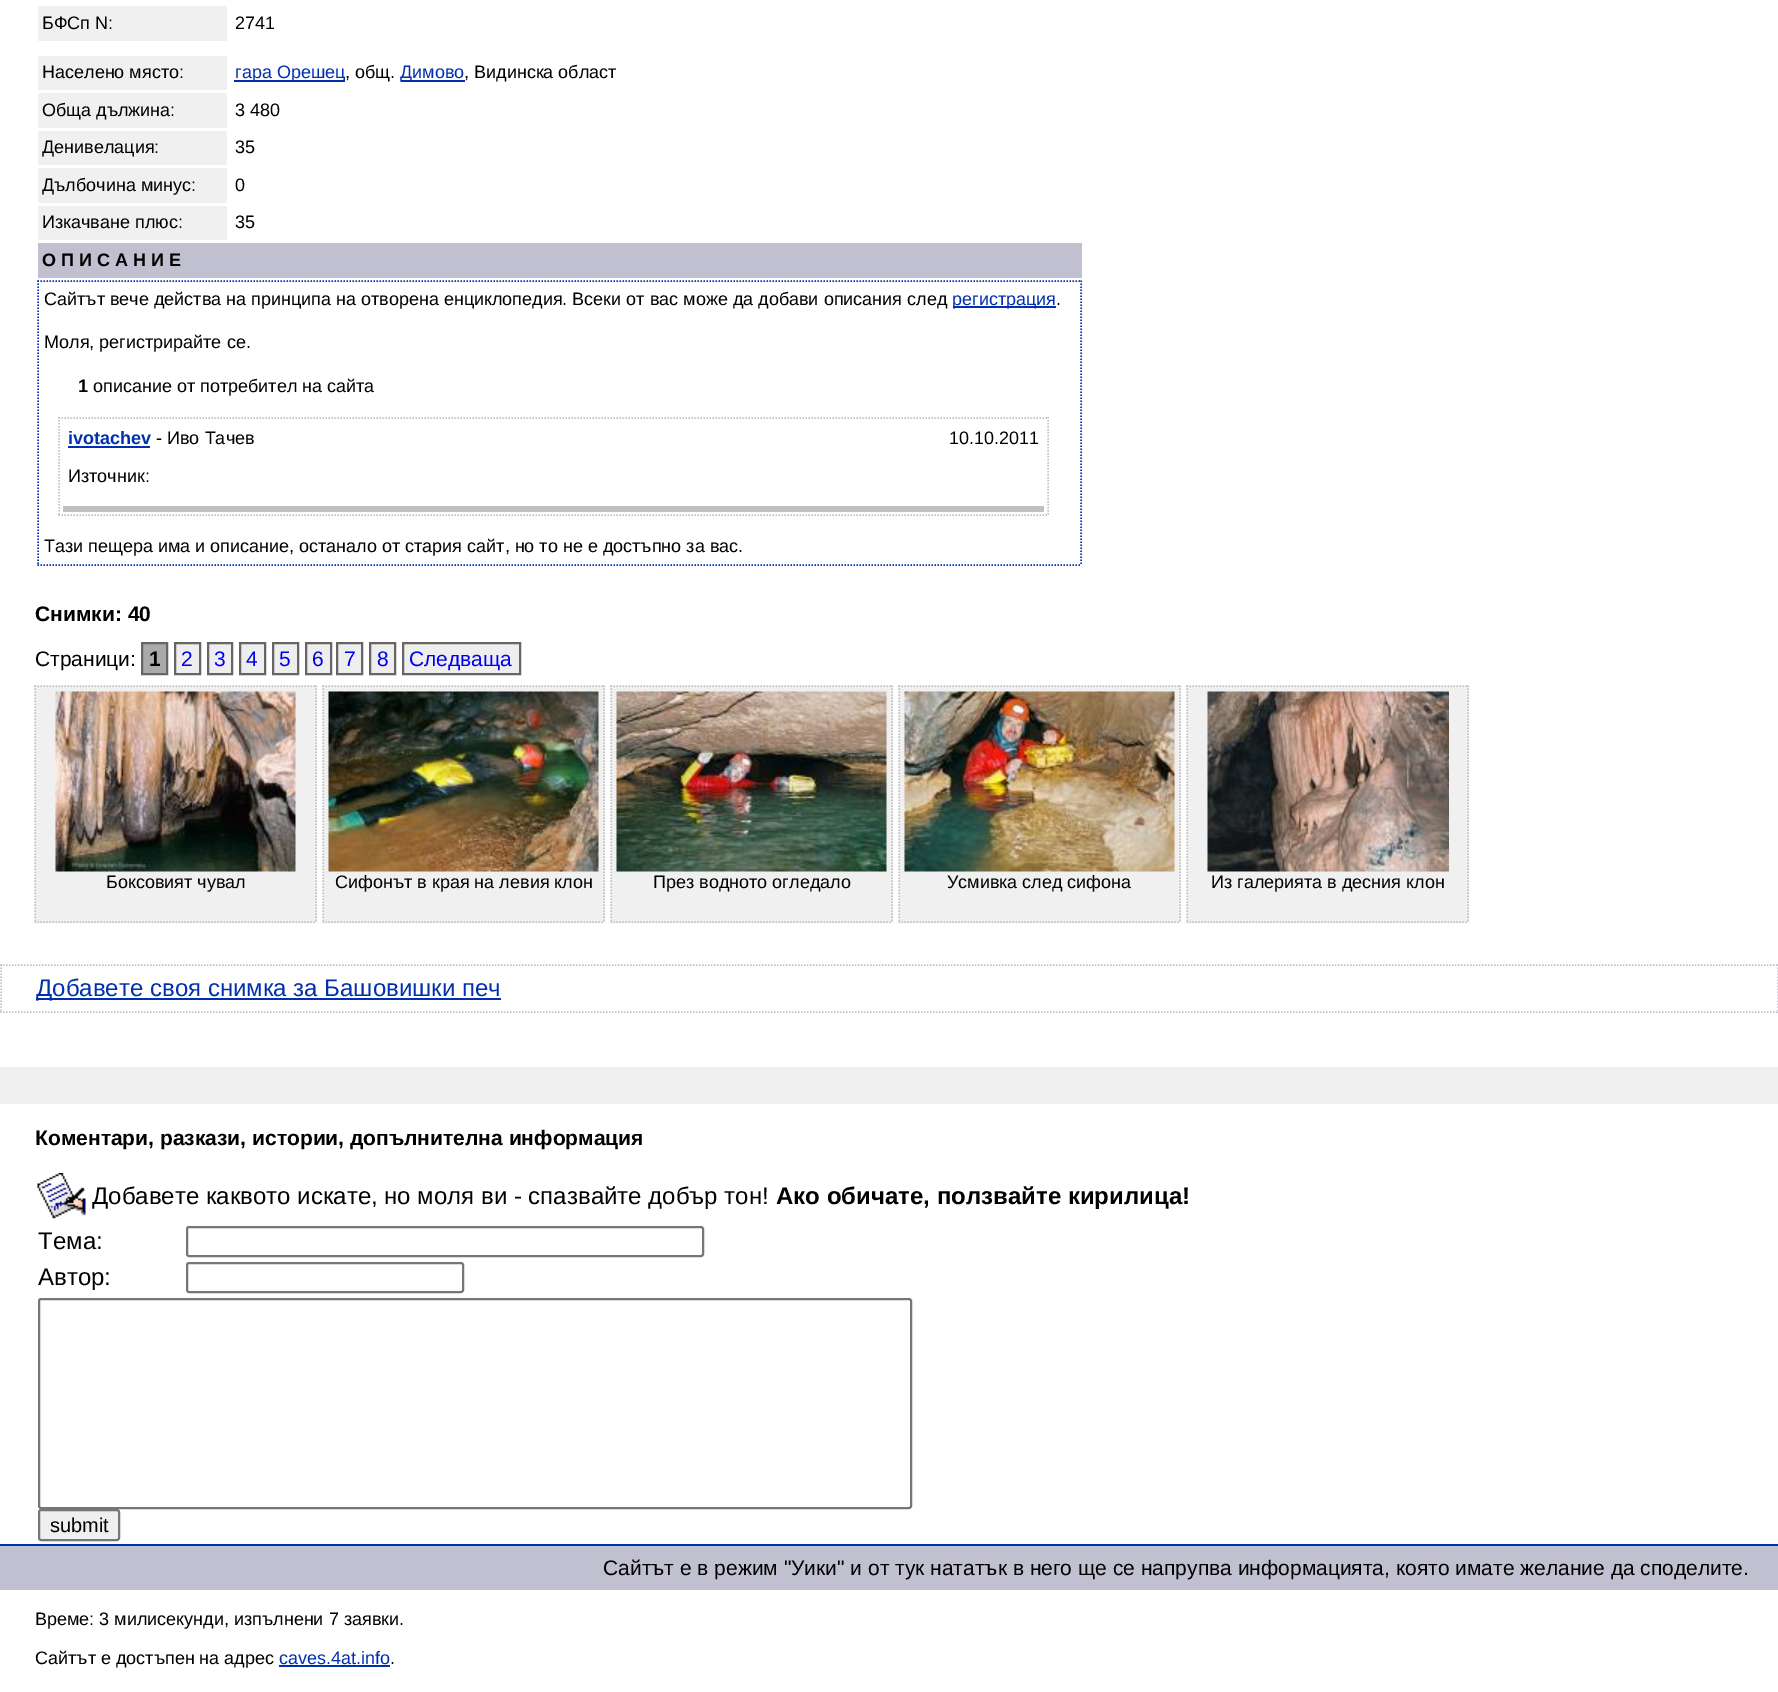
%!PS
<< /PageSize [1778 1692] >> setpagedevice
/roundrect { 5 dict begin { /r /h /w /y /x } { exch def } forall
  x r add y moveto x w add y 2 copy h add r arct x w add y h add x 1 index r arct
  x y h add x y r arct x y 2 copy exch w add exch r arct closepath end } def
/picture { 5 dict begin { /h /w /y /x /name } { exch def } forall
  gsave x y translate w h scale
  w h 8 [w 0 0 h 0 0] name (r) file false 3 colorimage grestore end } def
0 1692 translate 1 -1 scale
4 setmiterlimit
1 setgray
0 0 1778 1692 rectfill
0.941 setgray
38 6 189 35 rectfill
/LiberationSans-Regular [18 0 0 -18 0 0] selectfont
0 setgray
42 29 moveto (БФСп N:) show
235 29 moveto (2741) show
0.941 setgray
38 56 189 34 rectfill
0 setgray
42 78 moveto (Населено място:) show
0 0.188 0.69 setrgbcolor
234 80 111 2 rectfill
235 78 moveto (гара Орешец) show
0 setgray
345 78 moveto (, общ.) show
0 0.188 0.69 setrgbcolor
401 80 64 2 rectfill
400 78 moveto (Димово) show
0 setgray
464 78 moveto (, Видинска област) show
0.941 setgray
38 93 189 35 rectfill
0 setgray
42 116 moveto (Обща дължина:) show
235 116 moveto (3 480) show
0.941 setgray
38 131 189 34 rectfill
0 setgray
42 153 moveto (Денивелация:) show
235 153 moveto (35) show
0.941 setgray
38 168 189 35 rectfill
0 setgray
42 191 moveto (Дълбочина минус:) show
235 191 moveto (0) show
0.941 setgray
38 206 189 34 rectfill
0 setgray
42 228 moveto (Изкачване плюс:) show
235 228 moveto (35) show
0.753 0.753 0.816 setrgbcolor
38 243 1044 35 rectfill
/LiberationSans-Bold [18 0 0 -18 0 0] selectfont
0 setgray
42 266 moveto (О П И С А Н И Е) show
0 0.188 0.69 setrgbcolor
1.5 setlinewidth
[1.5 1.5] 0 setdash
newpath 37.5 281 moveto 1081.5 281 lineto stroke
newpath 1081 280.5 moveto 1081 565.5 lineto stroke
newpath 37.5 565 moveto 1081.5 565 lineto stroke
newpath 38 280.5 moveto 38 565.5 lineto stroke
/LiberationSans-Regular [18 0 0 -18 0 0] selectfont
0 setgray
44 305 moveto (Сайтът вече действа на принципа на отворена енциклопедия. Всеки от вас може да добави описания след) show
0 0.188 0.69 setrgbcolor
953 306 103 2 rectfill
952 305 moveto (регистрация) show
0 setgray
1056 305 moveto (.) show
44 348 moveto (Моля, регистрирайте се.) show
/LiberationSans-Bold [18 0 0 -18 0 0] selectfont
78 392 moveto (1) show
/LiberationSans-Regular [18 0 0 -18 0 0] selectfont
93 392 moveto (описание от потребител на сайта) show
0.753 setgray
newpath 58.5 418 moveto 1048.5 418 lineto stroke
newpath 1048 417 moveto 1048 516 lineto stroke
newpath 58.5 515 moveto 1048.5 515 lineto stroke
newpath 59 417 moveto 59 516 lineto stroke
/LiberationSans-Bold [18 0 0 -18 0 0] selectfont
0 0.188 0.69 setrgbcolor
68 444 moveto (ivotachev) show
68 446 82 2 rectfill
/LiberationSans-Regular [18 0 0 -18 0 0] selectfont
0 setgray
156 444 moveto (- Иво Тачев) show
949 444 moveto (10.10.2011) show
68 482 moveto (Източник:) show
0.753 setgray
63 506 981 6 rectfill
0 setgray
44 552 moveto (Тази пещера има и описание, останало от стария сайт, но то не е достъпно за вас.) show
/LiberationSans-Bold [21 0 0 -21 0 0] selectfont
35 621 moveto (Снимки: 40) show
/LiberationSans-Regular [21 0 0 -21 0 0] selectfont
35 666 moveto (Страници:) show
0.667 setgray
newpath 142 643 moveto 167 643 lineto 167 674 lineto 142 674 lineto closepath gsave fill grestore
0.4 setgray
2 setlinewidth
[] 0 setdash
stroke
/LiberationSans-Bold [21 0 0 -21 0 0] selectfont
0 setgray
149 666 moveto (1) show
0.933 setgray
newpath 175 643 moveto 200 643 lineto 200 674 lineto 175 674 lineto closepath gsave fill grestore
0.4 setgray
stroke
/LiberationSans-Regular [21 0 0 -21 0 0] selectfont
0 0 0.933 setrgbcolor
181 666 moveto (2) show
0.933 setgray
newpath 208 643 moveto 232 643 lineto 232 674 lineto 208 674 lineto closepath gsave fill grestore
0.4 setgray
stroke
0 0 0.933 setrgbcolor
214 666 moveto (3) show
0.933 setgray
newpath 240 643 moveto 265 643 lineto 265 674 lineto 240 674 lineto closepath gsave fill grestore
0.4 setgray
stroke
0 0 0.933 setrgbcolor
246 666 moveto (4) show
0.933 setgray
newpath 273 643 moveto 298 643 lineto 298 674 lineto 273 674 lineto closepath gsave fill grestore
0.4 setgray
stroke
0 0 0.933 setrgbcolor
279 666 moveto (5) show
0.933 setgray
newpath 306 643 moveto 331 643 lineto 331 674 lineto 306 674 lineto closepath gsave fill grestore
0.4 setgray
stroke
0 0 0.933 setrgbcolor
312 666 moveto (6) show
0.933 setgray
newpath 337 643 moveto 362 643 lineto 362 674 lineto 337 674 lineto closepath gsave fill grestore
0.4 setgray
stroke
0 0 0.933 setrgbcolor
344 666 moveto (7) show
0.933 setgray
newpath 370 643 moveto 395 643 lineto 395 674 lineto 370 674 lineto closepath gsave fill grestore
0.4 setgray
stroke
0 0 0.933 setrgbcolor
377 666 moveto (8) show
0.933 setgray
newpath 403 643 moveto 520 643 lineto 520 674 lineto 403 674 lineto closepath gsave fill grestore
0.4 setgray
stroke
0 0 0.933 setrgbcolor
409 666 moveto (Следваща) show
0.941 setgray
35 686 282 237 rectfill
0.753 setgray
1.5 setlinewidth
[1.5 1.5] 0 setdash
newpath 34.5 686 moveto 316.5 686 lineto stroke
newpath 316 685.5 moveto 316 922.5 lineto stroke
newpath 34.5 922 moveto 316.5 922 lineto stroke
newpath 35 685.5 moveto 35 922.5 lineto stroke
(img1.rgb) 55 691 241 181 picture
/LiberationSans-Regular [18 0 0 -18 0 0] selectfont
0 setgray
106 888 moveto (Боксовият чувал) show
0.941 setgray
323 686 282 237 rectfill
0.753 setgray
newpath 322.5 686 moveto 604.5 686 lineto stroke
newpath 604 685.5 moveto 604 922.5 lineto stroke
newpath 322.5 922 moveto 604.5 922 lineto stroke
newpath 323 685.5 moveto 323 922.5 lineto stroke
(img2.rgb) 328 691 271 181 picture
0 setgray
335 888 moveto (Сифонът в края на левия клон) show
0.941 setgray
611 686 282 237 rectfill
0.753 setgray
newpath 610.5 686 moveto 892.5 686 lineto stroke
newpath 892 685.5 moveto 892 922.5 lineto stroke
newpath 610.5 922 moveto 892.5 922 lineto stroke
newpath 611 685.5 moveto 611 922.5 lineto stroke
(img3.rgb) 616 691 271 181 picture
0 setgray
653 888 moveto (През водното огледало) show
0.941 setgray
899 686 282 237 rectfill
0.753 setgray
newpath 898.5 686 moveto 1180.5 686 lineto stroke
newpath 1180 685.5 moveto 1180 922.5 lineto stroke
newpath 898.5 922 moveto 1180.5 922 lineto stroke
newpath 899 685.5 moveto 899 922.5 lineto stroke
(img4.rgb) 904 691 271 181 picture
0 setgray
947 888 moveto (Усмивка след сифона) show
0.941 setgray
1187 686 282 237 rectfill
0.753 setgray
newpath 1186.5 686 moveto 1468.5 686 lineto stroke
newpath 1468 685.5 moveto 1468 922.5 lineto stroke
newpath 1186.5 922 moveto 1468.5 922 lineto stroke
newpath 1187 685.5 moveto 1187 922.5 lineto stroke
(img5.rgb) 1207 691 242 181 picture
0 setgray
1211 888 moveto (Из галерията в десния клон) show
0.753 0.753 0.816 setrgbcolor
newpath 0 965 moveto 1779 965 lineto stroke
newpath 1778 964.5 moveto 1778 1012.5 lineto stroke
newpath 0 1012 moveto 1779 1012 lineto stroke
newpath 1 964.5 moveto 1 1012.5 lineto stroke
0 0.188 0.69 setrgbcolor
36 998 465 2 rectfill
/LiberationSans-Regular [24 0 0 -24 0 0] selectfont
36 996 moveto (Добавете своя снимка за Башовишки печ) show
0.941 setgray
0 1067 1778 37 rectfill
/LiberationSans-Bold [21 0 0 -21 0 0] selectfont
0 setgray
35 1145 moveto (Коментари, разкази, истории, допълнителна информация) show
(img6.rgb) 37 1173 49 46 picture
/LiberationSans-Regular [24 0 0 -24 0 0] selectfont
92 1204 moveto (Добавете каквото искате, но моля ви - спазвайте добър тон!) show
/LiberationSans-Bold [24 0 0 -24 0 0] selectfont
776 1204 moveto (Ако обичате, ползвайте кирилица!) show
/LiberationSans-Regular [24 0 0 -24 0 0] selectfont
38 1249 moveto (Тема:) show
0.463 setgray
2 setlinewidth
[] 0 setdash
187 1227 516 29 2 roundrect stroke
0 setgray
38 1285 moveto (Автор:) show
0.463 setgray
187 1263 276 29 2 roundrect stroke
39 1299 872 209 2 roundrect stroke
0.937 setgray
39 1510 80 30 2 roundrect gsave fill grestore
0.463 setgray
stroke
/LiberationSans-Regular [20 0 0 -20 0 0] selectfont
0 setgray
50 1532 moveto (submit) show
0.753 0.753 0.816 setrgbcolor
0 1546 1778 44 rectfill
0 0.188 0.69 setrgbcolor
0 1544 1778 2 rectfill
/LiberationSans-Regular [21 0 0 -21 0 0] selectfont
0 setgray
603 1575 moveto (Сайтът е в режим "Уики" и от тук нататък в него ще се напрупва информацията, която имате желание да споделите.) show
/LiberationSans-Regular [18 0 0 -18 0 0] selectfont
35 1625 moveto (Време: 3 милисекунди, изпълнени 7 заявки.) show
35 1664 moveto (Сайтът е достъпен на адрес) show
0 0.188 0.69 setrgbcolor
279 1664 moveto (caves.4at.info) show
279 1665 111 2 rectfill
0 setgray
390 1664 moveto (.) show
showpage
